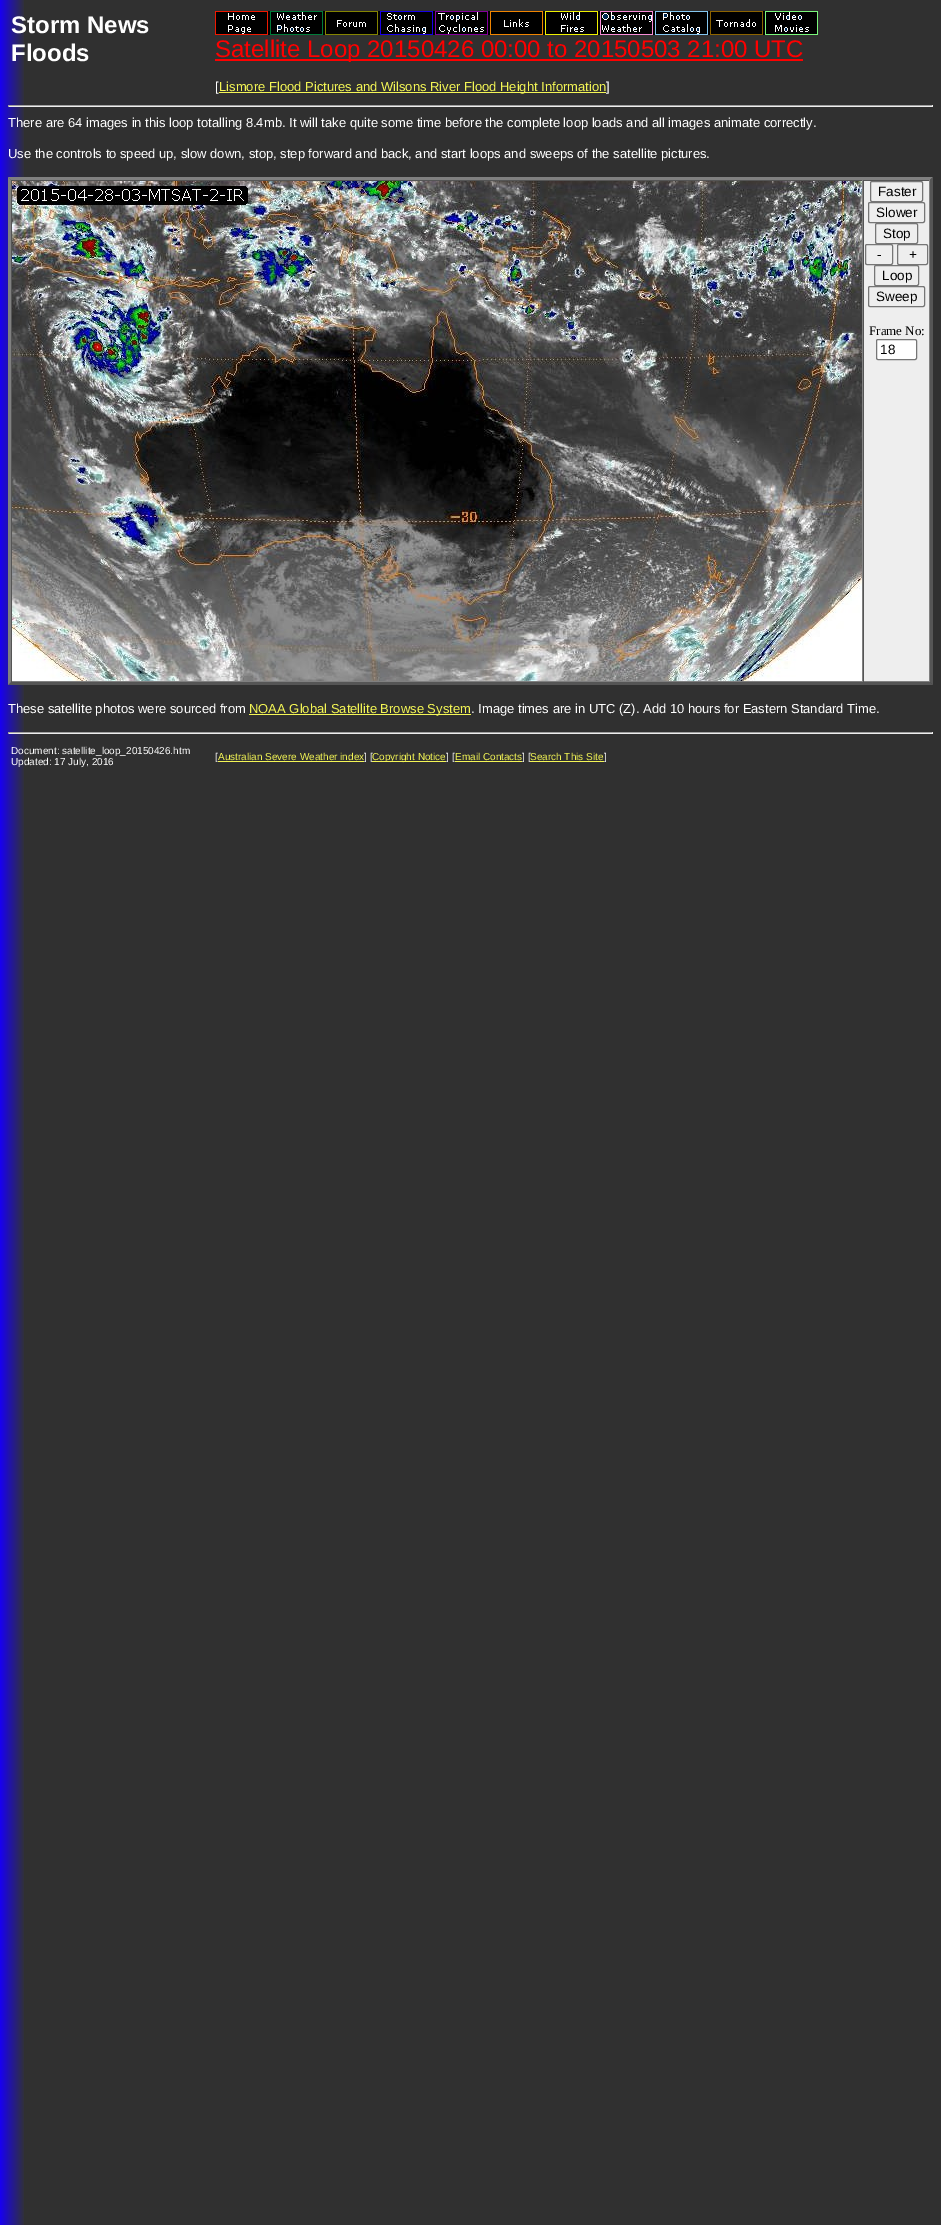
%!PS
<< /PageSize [941 2225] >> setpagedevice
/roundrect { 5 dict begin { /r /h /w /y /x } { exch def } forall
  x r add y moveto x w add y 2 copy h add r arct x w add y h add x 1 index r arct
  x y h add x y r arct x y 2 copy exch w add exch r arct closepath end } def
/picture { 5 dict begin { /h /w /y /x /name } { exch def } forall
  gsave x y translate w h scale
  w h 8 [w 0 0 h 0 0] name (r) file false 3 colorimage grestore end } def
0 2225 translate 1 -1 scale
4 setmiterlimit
1 setgray
0 0 941 2225 rectfill
(img1.rgb) 0 0 941 2225 picture
/LiberationSans-Bold [24 0 0 -24 0 0] selectfont
11 33 moveto (Storm News) show
11 61 moveto (Floods) show
(img2.rgb) 215 11 603 24 picture
1 0 0 setrgbcolor
215 59 588 2 rectfill
/LiberationSans-Regular [24 0 0 -24 0 0] selectfont
215 57 moveto (Satellite Loop 20150426 00:00 to 20150503 21:00 UTC) show
/LiberationSans-Regular [13 0 0 -13 0 0] selectfont
1 setgray
215 91 moveto ([) show
0.957 0.965 0.333 setrgbcolor
219 92 387 1 rectfill
219 91 moveto (Lismore Flood Pictures and Wilsons River Flood Height Information) show
1 setgray
606 91 moveto (]) show
0.624 setgray
8 105 925 1 rectfill
0.933 setgray
932 105 1 2 rectfill
8 106 925 1 rectfill
0.624 setgray
8 105 1 2 rectfill
1 setgray
8 127 moveto (There are 64 images in this loop totalling 8.4mb. It will take quite some time before the complete loop loads and all images animate correctly.) show
8 158 moveto (Use the controls to speed up, slow down, stop, step forward and back, and start loops and sweeps of the satellite pictures.) show
0.502 setgray
newpath 8 177 moveto 933 177 lineto 930 180 lineto 11 180 lineto closepath fill
0.333 setgray
newpath 933 177 moveto 933 685 lineto 930 682 lineto 930 180 lineto closepath fill
newpath 933 685 moveto 8 685 lineto 11 682 lineto 930 682 lineto closepath fill
0.502 setgray
newpath 8 685 moveto 8 177 lineto 11 180 lineto 11 682 lineto closepath fill
0.333 setgray
11 180 919 1 rectfill
0.502 setgray
862 180 1 502 rectfill
11 681 852 1 rectfill
0.333 setgray
11 180 1 502 rectfill
(img3.rgb) 12 181 850 500 picture
0.933 setgray
864 181 65 500 rectfill
0.502 setgray
929 180 1 502 rectfill
863 681 67 1 rectfill
0.333 setgray
863 180 1 502 rectfill
0.463 setgray
870.5 181.5 52 20 1.5 roundrect stroke
/LiberationSans-Regular [13.5 0 0 -13.5 0 0] selectfont
0 setgray
878 196 moveto (Faster) show
0.463 setgray
868.5 202.5 56 20 1.5 roundrect stroke
0 setgray
876 217 moveto (Slower) show
0.463 setgray
875.5 223.5 42 20 1.5 roundrect stroke
0 setgray
883 238 moveto (Stop) show
0.463 setgray
865.5 244.5 27 20 1.5 roundrect stroke
0 setgray
877 259 moveto (-) show
0.463 setgray
897.5 244.5 30 20 1.5 roundrect stroke
0 setgray
909 259 moveto (+) show
0.463 setgray
874.5 265.5 44 20 1.5 roundrect stroke
0 setgray
882 280 moveto (Loop) show
0.463 setgray
868.5 286.5 56 20 1.5 roundrect stroke
0 setgray
876 301 moveto (Sweep) show
/LiberationSerif-Regular [13 0 0 -13 0 0] selectfont
869 335 moveto (Frame No:) show
1 setgray
876.5 339.5 40 20 1.5 roundrect gsave fill grestore
0.463 setgray
stroke
/LiberationSans-Regular [13.5 0 0 -13.5 0 0] selectfont
0 setgray
880 354 moveto (18) show
/LiberationSans-Regular [13 0 0 -13 0 0] selectfont
1 setgray
8 713 moveto (These satellite photos were sourced from) show
0.957 0.965 0.333 setrgbcolor
249 714 222 1 rectfill
249 713 moveto (NOAA Global Satellite Browse System) show
1 setgray
471 713 moveto (. Image times are in UTC \(Z\). Add 10 hours for Eastern Standard Time.) show
0.624 setgray
8 732 925 1 rectfill
0.933 setgray
932 732 1 2 rectfill
8 733 925 1 rectfill
0.624 setgray
8 732 1 2 rectfill
/LiberationSans-Regular [10 0 0 -10 0 0] selectfont
1 setgray
11 754 moveto (Document: satellite_loop_20150426.htm) show
11 765 moveto (Updated: 17 July, 2016) show
215 760 moveto ([) show
0.957 0.965 0.333 setrgbcolor
218 761 146 1 rectfill
218 760 moveto (Australian Severe Weather index) show
1 setgray
364 760 moveto (] [) show
0.957 0.965 0.333 setrgbcolor
372 761 74 1 rectfill
372 760 moveto (Copyright Notice) show
1 setgray
446 760 moveto (] [) show
0.957 0.965 0.333 setrgbcolor
455 761 67 1 rectfill
455 760 moveto (Email Contacts) show
1 setgray
522 760 moveto (] [) show
0.957 0.965 0.333 setrgbcolor
530 761 74 1 rectfill
530 760 moveto (Search This Site) show
1 setgray
604 760 moveto (]) show
showpage
